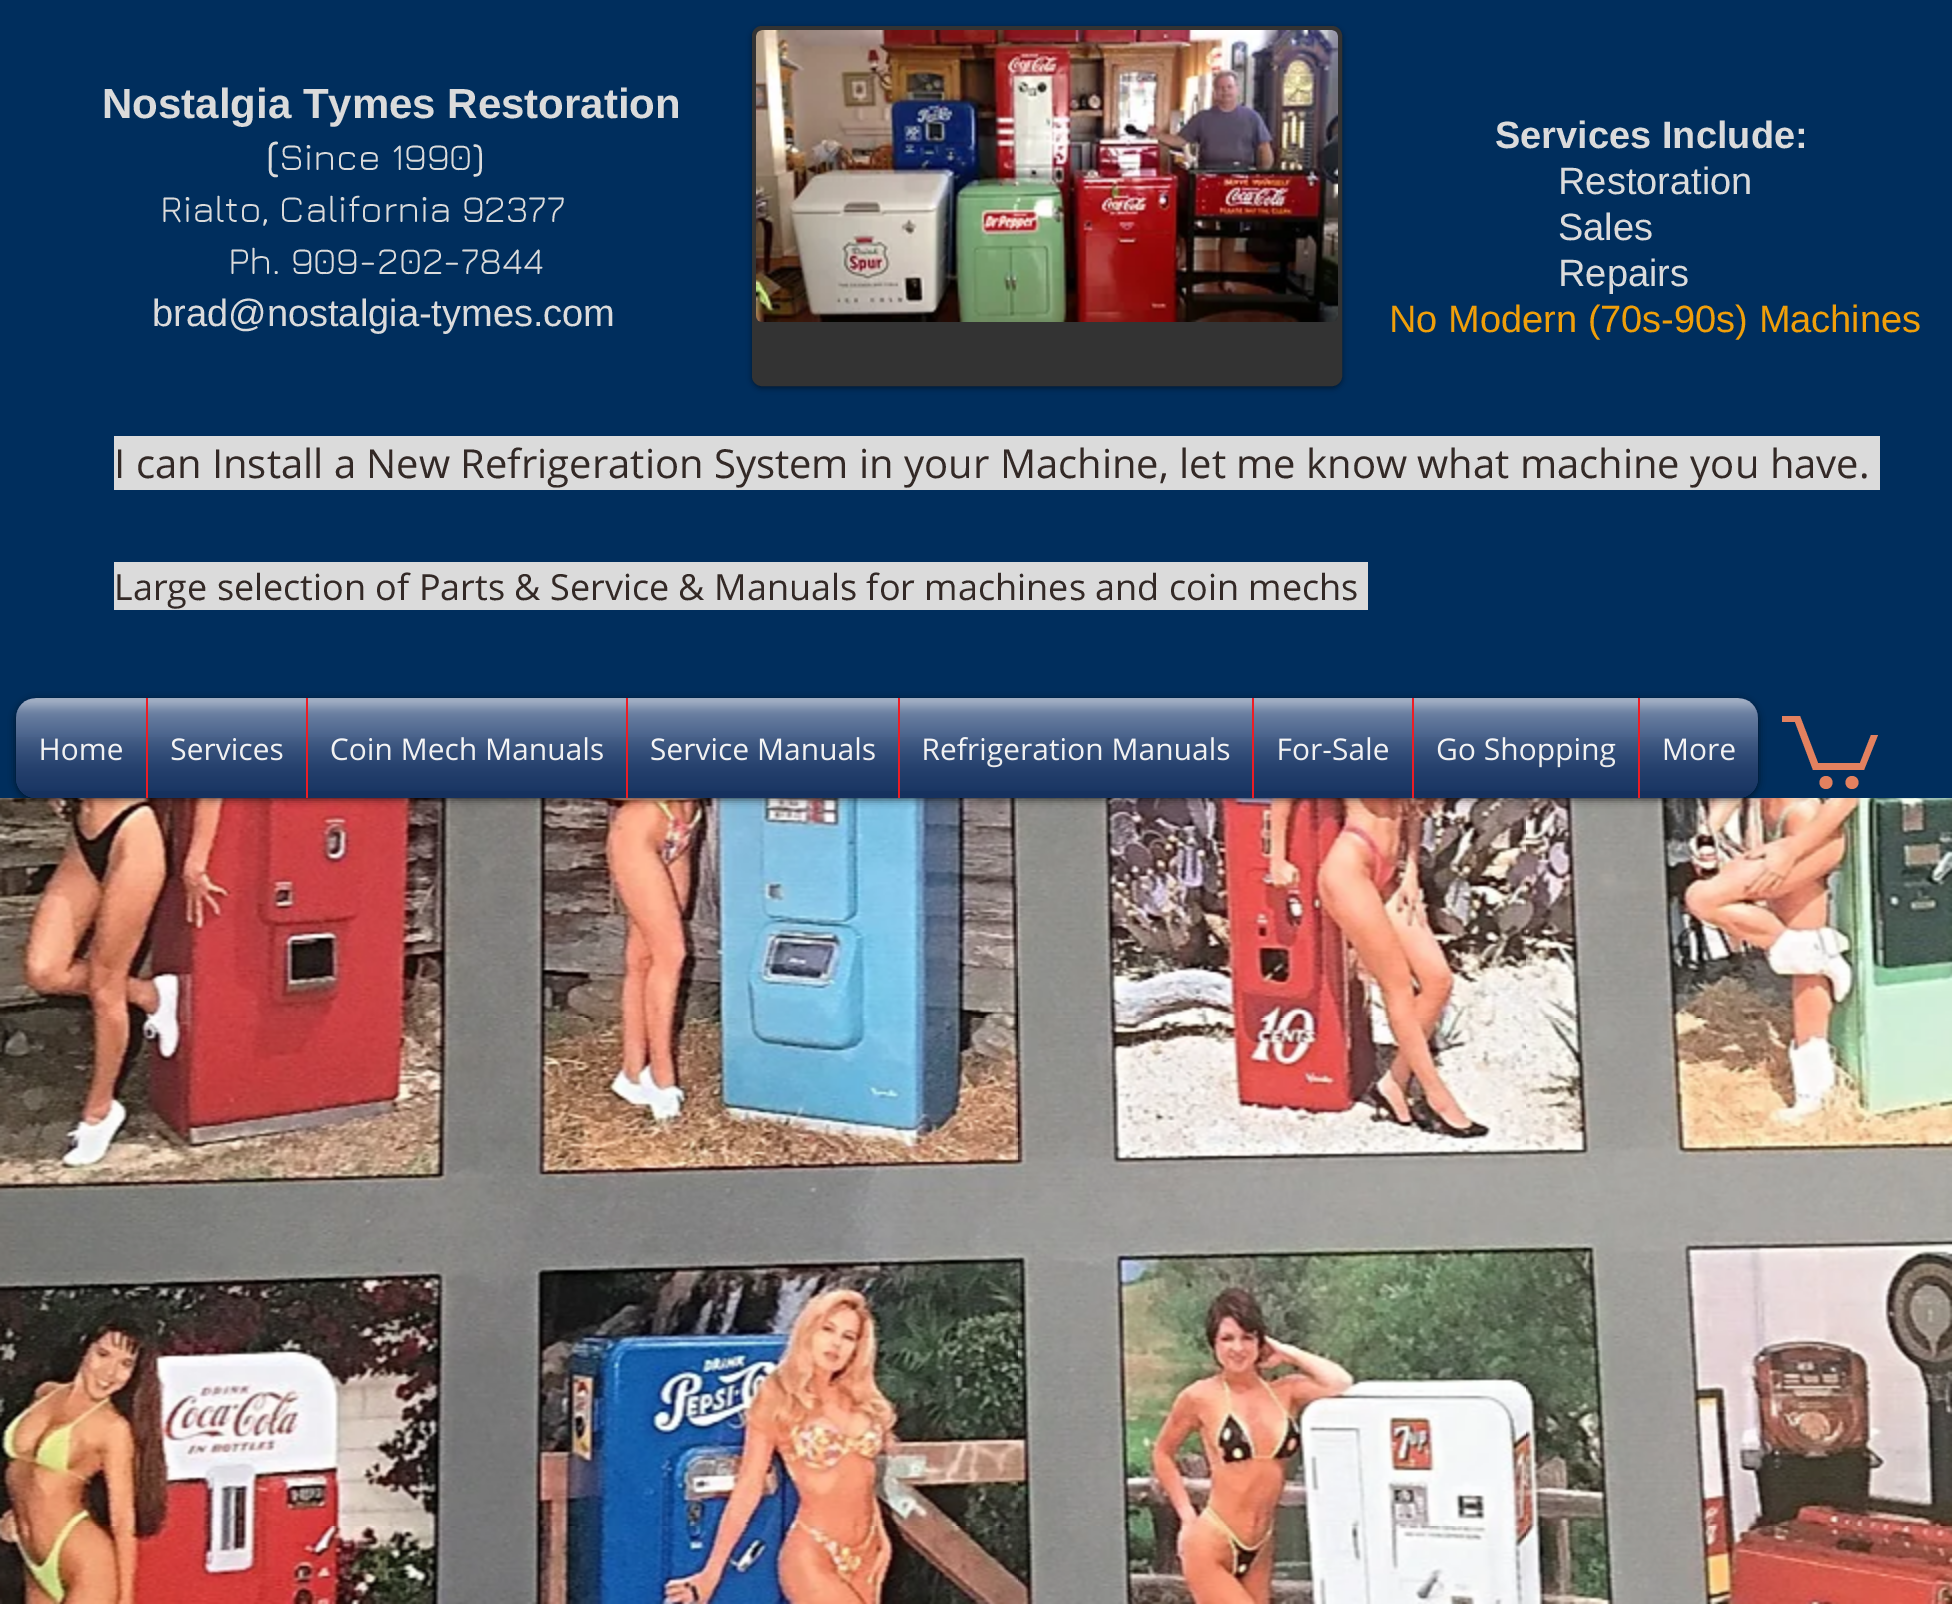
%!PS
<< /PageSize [1952 1604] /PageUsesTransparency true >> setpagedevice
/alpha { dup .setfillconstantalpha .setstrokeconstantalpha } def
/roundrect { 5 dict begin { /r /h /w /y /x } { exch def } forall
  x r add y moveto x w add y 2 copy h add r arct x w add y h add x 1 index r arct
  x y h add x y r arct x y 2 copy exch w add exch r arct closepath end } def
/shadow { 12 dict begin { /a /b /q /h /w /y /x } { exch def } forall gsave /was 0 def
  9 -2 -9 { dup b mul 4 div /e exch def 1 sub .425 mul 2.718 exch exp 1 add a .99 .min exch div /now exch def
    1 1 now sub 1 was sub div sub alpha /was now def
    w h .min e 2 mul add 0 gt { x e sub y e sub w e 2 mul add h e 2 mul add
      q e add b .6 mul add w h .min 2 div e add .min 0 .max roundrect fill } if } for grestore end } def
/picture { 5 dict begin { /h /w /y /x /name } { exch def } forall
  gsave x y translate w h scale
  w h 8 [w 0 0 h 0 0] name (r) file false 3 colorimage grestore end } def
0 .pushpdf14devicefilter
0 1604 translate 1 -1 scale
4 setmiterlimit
1 setgray
0 0 1952 1604 rectfill
0 0.18 0.365 setrgbcolor
0 0 1952 798 rectfill
/LiberationSans-Bold [42 0 0 -42 0 0] selectfont
0.859 setgray
102 118 moveto (Nostalgia Tymes Restoration) show
/Jura-Bold [42 0 0 -42 0 0] selectfont
266 170 moveto (\() show
/Jura-Regular [38 0 0 -38 0 0] selectfont
279 170 moveto (Since 1990) show
/Jura-Bold [38 0 0 -38 0 0] selectfont
473 170 moveto (\)) show
/Jura-Regular [38 0 0 -38 0 0] selectfont
160 222 moveto (Rialto, California 92377) show
228 274 moveto (Ph. 909-202-7844) show
/LiberationSans-Regular [38 0 0 -38 0 0] selectfont
152 326 moveto (brad@nostalgia-tymes.com) show
0 setgray
752 28 590 360 10 3 0.5 shadow
0.2 setgray
754 28 586 356 8 roundrect gsave fill grestore
4 setlinewidth
stroke
(img1.rgb) 756 30 582 292 picture
/LiberationSans-Bold [38 0 0 -38 0 0] selectfont
0.859 setgray
1495 148 moveto (Services Include:) show
/LiberationSans-Regular [38 0 0 -38 0 0] selectfont
1558 194 moveto (Restoration) show
1558 240 moveto (Sales) show
1558 286 moveto (Repairs) show
0.941 0.624 0.039 setrgbcolor
1389 332 moveto (No Modern \(70s-90s\) Machines) show
0.859 setgray
114 436 1766 54 rectfill
/OpenSans-Regular [40 0 0 -40 0 0] selectfont
0.2 0.161 0.149 setrgbcolor
114 478 moveto (I can Install a New Refrigeration System in your Machine, let me know what machine you have.) show
0.859 setgray
114 562 1254 48 rectfill
/OpenSans-Regular [36 0 0 -36 0 0] selectfont
0.2 0.161 0.149 setrgbcolor
114 600 moveto (Large selection of Parts & Service & Manuals for machines and coin mechs) show
(img20.rgb) 0 798 1952 806 picture
0 setgray
16 700 1742 100 20 4 0.6 shadow
(img2.rgb) 16 698 1742 89 picture
(img3.rgb) 16 778 1742 20 picture
0.098 0.224 0.427 setrgbcolor
newpath 36 698 moveto 146 698 lineto 146 798 lineto 36 798 lineto 25 798 16 789 16 778 curveto 16 718 lineto 16 707 25 698 36 698 curveto closepath fill
/OpenSans-Regular [30 0 0 -30 0 0] selectfont
1 setgray
39 760 moveto (Home) show
(img4.rgb) 16 698 130 91 picture
(img5.rgb) 16 737 130 61 picture
0.098 0.224 0.427 setrgbcolor
148 698 158 100 rectfill
0.929 0.11 0.141 setrgbcolor
146 698 2 100 rectfill
1 setgray
170 760 moveto (Services) show
(img6.rgb) 148 698 158 91 picture
(img7.rgb) 148 737 158 61 picture
0.098 0.224 0.427 setrgbcolor
308 698 318 100 rectfill
0.929 0.11 0.141 setrgbcolor
306 698 2 100 rectfill
1 setgray
330 760 moveto (Coin Mech Manuals) show
(img8.rgb) 308 698 318 91 picture
(img9.rgb) 308 737 318 61 picture
0.098 0.224 0.427 setrgbcolor
628 698 270 100 rectfill
0.929 0.11 0.141 setrgbcolor
626 698 2 100 rectfill
1 setgray
650 760 moveto (Service Manuals) show
(img10.rgb) 628 698 270 91 picture
(img11.rgb) 628 737 270 61 picture
0.098 0.224 0.427 setrgbcolor
900 698 352 100 rectfill
0.929 0.11 0.141 setrgbcolor
898 698 2 100 rectfill
1 setgray
921 760 moveto (Refrigeration Manuals) show
(img12.rgb) 900 698 352 91 picture
(img13.rgb) 900 737 352 61 picture
0.098 0.224 0.427 setrgbcolor
1254 698 158 100 rectfill
0.929 0.11 0.141 setrgbcolor
1252 698 2 100 rectfill
1 setgray
1276 760 moveto (For-Sale) show
(img14.rgb) 1254 698 158 91 picture
(img15.rgb) 1254 737 158 61 picture
0.098 0.224 0.427 setrgbcolor
1414 698 224 100 rectfill
0.929 0.11 0.141 setrgbcolor
1412 698 2 100 rectfill
1 setgray
1436 760 moveto (Go Shopping) show
(img16.rgb) 1414 698 224 91 picture
(img17.rgb) 1414 737 224 61 picture
0.098 0.224 0.427 setrgbcolor
newpath 1638 698 moveto 1738 698 lineto 1749 698 1758 707 1758 718 curveto 1758 778 lineto 1758 789 1749 798 1738 798 curveto 1638 798 lineto closepath fill
0.929 0.11 0.141 setrgbcolor
1638 698 2 100 rectfill
1 setgray
1662 760 moveto (More) show
(img18.rgb) 1640 698 118 91 picture
(img19.rgb) 1640 737 118 61 picture
0.89 0.506 0.373 setrgbcolor
newpath 1878 735 moveto 1864 770 lineto 1813 770 lineto 1795 722 lineto 1782 722 lineto 1782 716 lineto 1800 716 lineto 1818 763 lineto 1860 763 lineto 1871 735 lineto fill
newpath 1852 782.5 6.5 0 360 arc closepath fill
newpath 1826 782.5 6.5 0 360 arc closepath fill
.poppdf14devicefilter showpage
